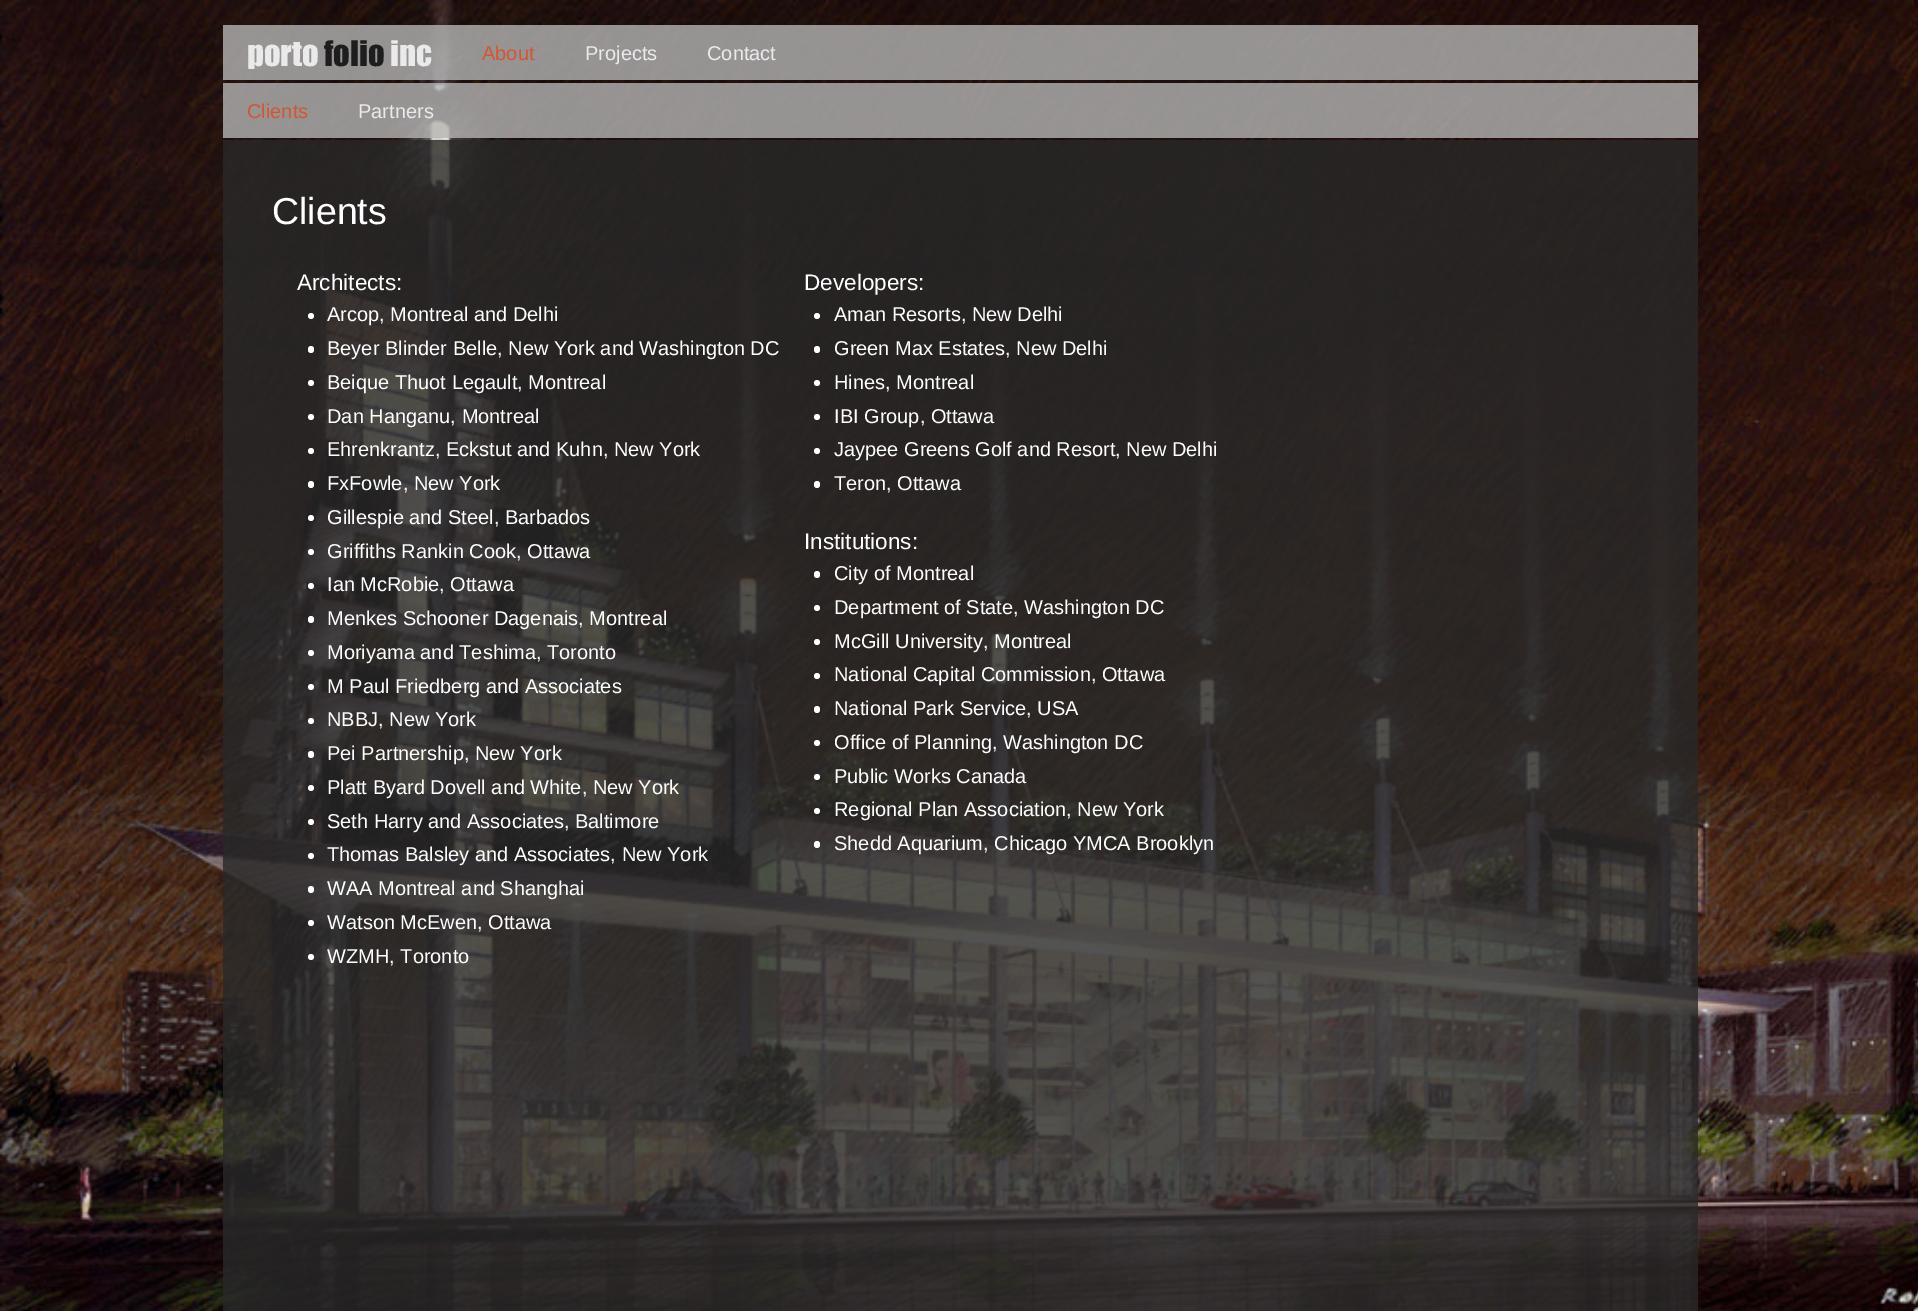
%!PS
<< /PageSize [1918 1311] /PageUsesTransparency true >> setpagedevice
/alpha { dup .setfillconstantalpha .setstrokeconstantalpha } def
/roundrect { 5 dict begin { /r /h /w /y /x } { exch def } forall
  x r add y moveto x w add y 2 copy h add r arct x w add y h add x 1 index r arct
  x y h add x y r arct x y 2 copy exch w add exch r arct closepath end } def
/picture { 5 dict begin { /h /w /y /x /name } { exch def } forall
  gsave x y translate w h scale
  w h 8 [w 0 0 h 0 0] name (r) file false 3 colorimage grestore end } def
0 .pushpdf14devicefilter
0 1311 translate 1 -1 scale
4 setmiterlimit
1 setgray
0 0 1918 1311 rectfill
(img1.rgb) 0 0 1918 1311 picture
0.8 alpha
0.706 setgray
223 25 235 55 rectfill
/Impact-Regular [32.5 0 0 -32.5 0 0] selectfont
1 alpha
0.918 setgray
247 66 moveto (porto) show
0.118 0.114 0.114 setrgbcolor
324 66 moveto (folio) show
0.918 setgray
390 66 moveto (inc) show
0.8 alpha
0.706 setgray
458 25 102 55 rectfill
/LiberationSans-Regular [20 0 0 -20 0 0] selectfont
1 alpha
0.824 0.337 0.2 setrgbcolor
482 60 moveto (About) show
0.8 alpha
0.706 setgray
560 25 123 55 rectfill
1 alpha
0.918 setgray
585 60 moveto (Projects) show
0.8 alpha
0.706 setgray
683 25 118 55 rectfill
1 alpha
0.918 setgray
707 60 moveto (Contact) show
0.8 alpha
0.706 setgray
801 25 897 55 rectfill
223 83 110 55 rectfill
1 alpha
0.824 0.337 0.2 setrgbcolor
247 118 moveto (Clients) show
0.8 alpha
0.706 setgray
333 83 126 55 rectfill
1 alpha
0.918 setgray
358 118 moveto (Partners) show
0.8 alpha
0.706 setgray
459 83 1239 55 rectfill
0.157 setgray
223 140 1475 1171 rectfill
/LiberationSans-Regular [37.5 0 0 -37.5 0 0] selectfont
1 alpha
1 setgray
272 224 moveto (Clients) show
/LiberationSans-Regular [22.5 0 0 -22.5 0 0] selectfont
297 290 moveto (Architects:) show
newpath 311 316 3 0 360 arc closepath fill
/LiberationSans-Regular [20 0 0 -20 0 0] selectfont
327 321 moveto (Arcop, Montreal and Delhi) show
308 346 6 7 3 roundrect fill
327 355 moveto (Beyer Blinder Belle, New York and Washington DC) show
newpath 311 383 3 0 360 arc closepath fill
327 389 moveto (Beique Thuot Legault, Montreal) show
newpath 311 417 3 0 360 arc closepath fill
327 423 moveto (Dan Hanganu, Montreal) show
newpath 311 451 3 0 360 arc closepath fill
327 456 moveto (Ehrenkrantz, Eckstut and Kuhn, New York) show
308 481 6 7 3 roundrect fill
327 490 moveto (FxFowle, New York) show
newpath 311 518 3 0 360 arc closepath fill
327 524 moveto (Gillespie and Steel, Barbados) show
newpath 311 552 3 0 360 arc closepath fill
327 558 moveto (Griffiths Rankin Cook, Ottawa) show
newpath 311 586 3 0 360 arc closepath fill
327 591 moveto (Ian McRobie, Ottawa) show
308 616 6 7 3 roundrect fill
327 625 moveto (Menkes Schooner Dagenais, Montreal) show
newpath 311 653 3 0 360 arc closepath fill
327 659 moveto (Moriyama and Teshima, Toronto) show
newpath 311 687 3 0 360 arc closepath fill
327 693 moveto (M Paul Friedberg and Associates) show
newpath 311 721 3 0 360 arc closepath fill
327 726 moveto (NBBJ, New York) show
308 751 6 7 3 roundrect fill
327 760 moveto (Pei Partnership, New York) show
newpath 311 788 3 0 360 arc closepath fill
327 794 moveto (Platt Byard Dovell and White, New York) show
newpath 311 822 3 0 360 arc closepath fill
327 828 moveto (Seth Harry and Associates, Baltimore) show
newpath 311 856 3 0 360 arc closepath fill
327 861 moveto (Thomas Balsley and Associates, New York) show
308 886 6 7 3 roundrect fill
327 895 moveto (WAA Montreal and Shanghai) show
newpath 311 923 3 0 360 arc closepath fill
327 929 moveto (Watson McEwen, Ottawa) show
newpath 311 957 3 0 360 arc closepath fill
327 963 moveto (WZMH, Toronto) show
/LiberationSans-Regular [22.5 0 0 -22.5 0 0] selectfont
804 290 moveto (Developers:) show
newpath 817 316 3 0 360 arc closepath fill
/LiberationSans-Regular [20 0 0 -20 0 0] selectfont
834 321 moveto (Aman Resorts, New Delhi) show
814 346 6 7 3 roundrect fill
834 355 moveto (Green Max Estates, New Delhi) show
newpath 817 383 3 0 360 arc closepath fill
834 389 moveto (Hines, Montreal) show
newpath 817 417 3 0 360 arc closepath fill
834 423 moveto (IBI Group, Ottawa) show
newpath 817 451 3 0 360 arc closepath fill
834 456 moveto (Jaypee Greens Golf and Resort, New Delhi) show
814 481 6 7 3 roundrect fill
834 490 moveto (Teron, Ottawa) show
/LiberationSans-Regular [22.5 0 0 -22.5 0 0] selectfont
804 549 moveto (Institutions:) show
814 571 6 7 3 roundrect fill
/LiberationSans-Regular [20 0 0 -20 0 0] selectfont
834 580 moveto (City of Montreal) show
newpath 817 608 3 0 360 arc closepath fill
834 614 moveto (Department of State, Washington DC) show
newpath 817 642 3 0 360 arc closepath fill
834 648 moveto (McGill University, Montreal) show
newpath 817 676 3 0 360 arc closepath fill
834 681 moveto (National Capital Commission, Ottawa) show
814 706 6 7 3 roundrect fill
834 715 moveto (National Park Service, USA) show
newpath 817 743 3 0 360 arc closepath fill
834 749 moveto (Office of Planning, Washington DC) show
newpath 817 777 3 0 360 arc closepath fill
834 783 moveto (Public Works Canada) show
newpath 817 811 3 0 360 arc closepath fill
834 816 moveto (Regional Plan Association, New York) show
814 841 6 7 3 roundrect fill
834 850 moveto (Shedd Aquarium, Chicago YMCA Brooklyn) show
.poppdf14devicefilter showpage
